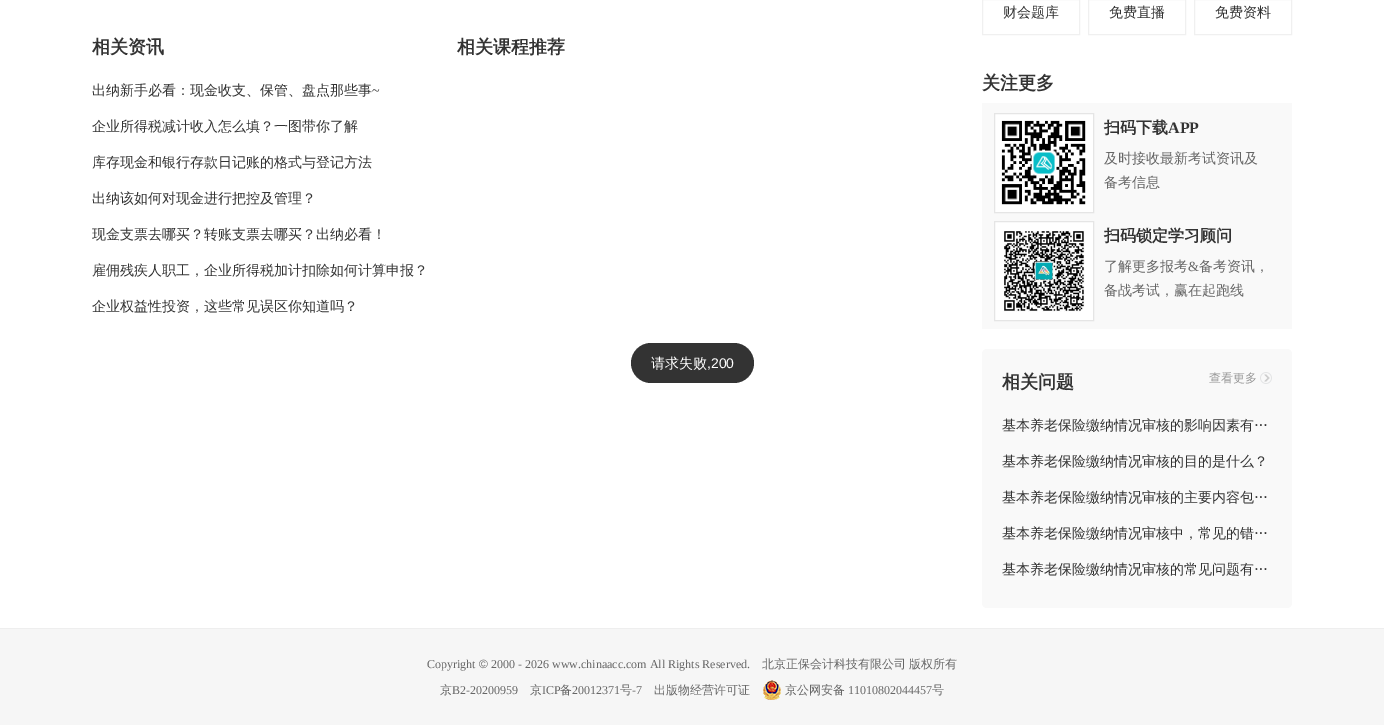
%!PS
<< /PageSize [1384 725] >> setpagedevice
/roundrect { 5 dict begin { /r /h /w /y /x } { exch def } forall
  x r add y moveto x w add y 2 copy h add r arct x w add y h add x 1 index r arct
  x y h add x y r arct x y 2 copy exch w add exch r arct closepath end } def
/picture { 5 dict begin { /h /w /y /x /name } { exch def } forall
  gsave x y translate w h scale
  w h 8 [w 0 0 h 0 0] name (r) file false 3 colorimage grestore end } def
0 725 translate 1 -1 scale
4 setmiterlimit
1 setgray
0 0 1384 725 rectfill
/WenQuanYiZenHei-Bold [18 0 0 -18 0 0] selectfont
0.2 setgray
92 53 moveto (相关资讯) show
/WenQuanYiZenHei-Medium [14 0 0 -14 0 0] selectfont
92 95 moveto (出纳新手必看：现金收支、保管、盘点那些事) show
/LiberationSerif-Regular [14 0 0 -14 0 0] selectfont
372 95 moveto (~) show
/WenQuanYiZenHei-Medium [14 0 0 -14 0 0] selectfont
92 131 moveto (企业所得税减计收入怎么填？一图带你了解) show
92 167 moveto (库存现金和银行存款日记账的格式与登记方法) show
92 203 moveto (出纳该如何对现金进行把控及管理？) show
92 239 moveto (现金支票去哪买？转账支票去哪买？出纳必看！) show
92 275 moveto (雇佣残疾人职工，企业所得税加计扣除如何计算申报？) show
92 311 moveto (企业权益性投资，这些常见误区你知道吗？) show
/WenQuanYiZenHei-Bold [18 0 0 -18 0 0] selectfont
457 53 moveto (相关课程推荐) show
0.941 setgray
982.5 -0.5 97 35 rectstroke
/WenQuanYiZenHei-Medium [14 0 0 -14 0 0] selectfont
0.2 setgray
1003 17 moveto (财会题库) show
0.941 setgray
1088.5 -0.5 97 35 rectstroke
0.2 setgray
1109 17 moveto (免费直播) show
0.941 setgray
1194.5 -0.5 97 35 rectstroke
0.2 setgray
1215 17 moveto (免费资料) show
/WenQuanYiZenHei-Bold [18 0 0 -18 0 0] selectfont
982 89 moveto (关注更多) show
0.976 setgray
982 103 310 226 rectfill
1 setgray
newpath 994.5 113.5 moveto 1093.5 113.5 lineto 1093.5 212.5 lineto 994.5 212.5 lineto closepath gsave fill grestore
0.898 setgray
stroke
(img1.rgb) 1001 120 85 85 picture
/WenQuanYiZenHei-Bold [16 0 0 -16 0 0] selectfont
0.2 setgray
1104 133 moveto (扫码下载) show
/LiberationSerif-Bold [16 0 0 -16 0 0] selectfont
1168 133 moveto (APP) show
/WenQuanYiZenHei-Medium [14 0 0 -14 0 0] selectfont
0.4 setgray
1104 163 moveto (及时接收最新考试资讯及) show
1104 187 moveto (备考信息) show
1 setgray
newpath 994.5 221.5 moveto 1093.5 221.5 lineto 1093.5 320.5 lineto 994.5 320.5 lineto closepath gsave fill grestore
0.898 setgray
stroke
(img2.rgb) 1004 231 81 81 picture
/WenQuanYiZenHei-Bold [16 0 0 -16 0 0] selectfont
0.2 setgray
1104 241 moveto (扫码锁定学习顾问) show
/WenQuanYiZenHei-Medium [14 0 0 -14 0 0] selectfont
0.4 setgray
1104 271 moveto (了解更多报考) show
/LiberationSerif-Regular [14 0 0 -14 0 0] selectfont
1188 271 moveto (&) show
/WenQuanYiZenHei-Medium [14 0 0 -14 0 0] selectfont
1199 271 moveto (备考资讯，) show
1104 295 moveto (备战考试，赢在起跑线) show
0.976 setgray
982 349 310 259 5 roundrect fill
/WenQuanYiZenHei-Bold [18 0 0 -18 0 0] selectfont
0.2 setgray
1002 388 moveto (相关问题) show
(img3.rgb) 1260 372 12 12 picture
/WenQuanYiZenHei-Medium [12 0 0 -12 0 0] selectfont
0.6 setgray
1209 382 moveto (查看更多) show
/WenQuanYiZenHei-Medium [14 0 0 -14 0 0] selectfont
0.2 setgray
1002 430 moveto (基本养老保险缴纳情况审核的影响因素有…) show
1002 466 moveto (基本养老保险缴纳情况审核的目的是什么？) show
1002 502 moveto (基本养老保险缴纳情况审核的主要内容包…) show
1002 538 moveto (基本养老保险缴纳情况审核中，常见的错…) show
1002 574 moveto (基本养老保险缴纳情况审核的常见问题有…) show
631 343 123 40 20 roundrect fill
1 setgray
651 368 moveto (请求失败) show
/LiberationSans-Regular [14 0 0 -14 0 0] selectfont
707 368 moveto (,200) show
0.965 setgray
0 629 1384 96 rectfill
0.933 setgray
0 628 1384 1 rectfill
/LiberationSerif-Regular [12 0 0 -12 0 0] selectfont
0.4 setgray
427 668 moveto (Copyright) show
/LiberationSans-Regular [12 0 0 -12 0 0] selectfont
479 668 moveto (©) show
/LiberationSerif-Regular [12 0 0 -12 0 0] selectfont
491 668 moveto (2000 - 2026 www.chinaacc.com All Rights Reserved.) show
/WenQuanYiZenHei-Medium [12 0 0 -12 0 0] selectfont
762 668 moveto -1 0 32 (北京正保会计科技有限公司 版权所有) widthshow
440 694 moveto (京) show
/LiberationSerif-Regular [12 0 0 -12 0 0] selectfont
452 694 moveto (B2-20200959) show
/WenQuanYiZenHei-Medium [12 0 0 -12 0 0] selectfont
530 694 moveto (京) show
/LiberationSerif-Regular [12 0 0 -12 0 0] selectfont
542 694 moveto (ICP) show
/WenQuanYiZenHei-Medium [12 0 0 -12 0 0] selectfont
560 694 moveto (备) show
/LiberationSerif-Regular [12 0 0 -12 0 0] selectfont
572 694 moveto (20012371) show
/WenQuanYiZenHei-Medium [12 0 0 -12 0 0] selectfont
620 694 moveto (号) show
/LiberationSerif-Regular [12 0 0 -12 0 0] selectfont
632 694 moveto (-7) show
/WenQuanYiZenHei-Medium [12 0 0 -12 0 0] selectfont
654 694 moveto (出版物经营许可证) show
(img4.rgb) 763 680 18 20 picture
785 694 moveto (京公网安备) show
/LiberationSerif-Regular [12 0 0 -12 0 0] selectfont
848 694 moveto (11010802044457) show
/WenQuanYiZenHei-Medium [12 0 0 -12 0 0] selectfont
932 694 moveto (号) show
showpage
